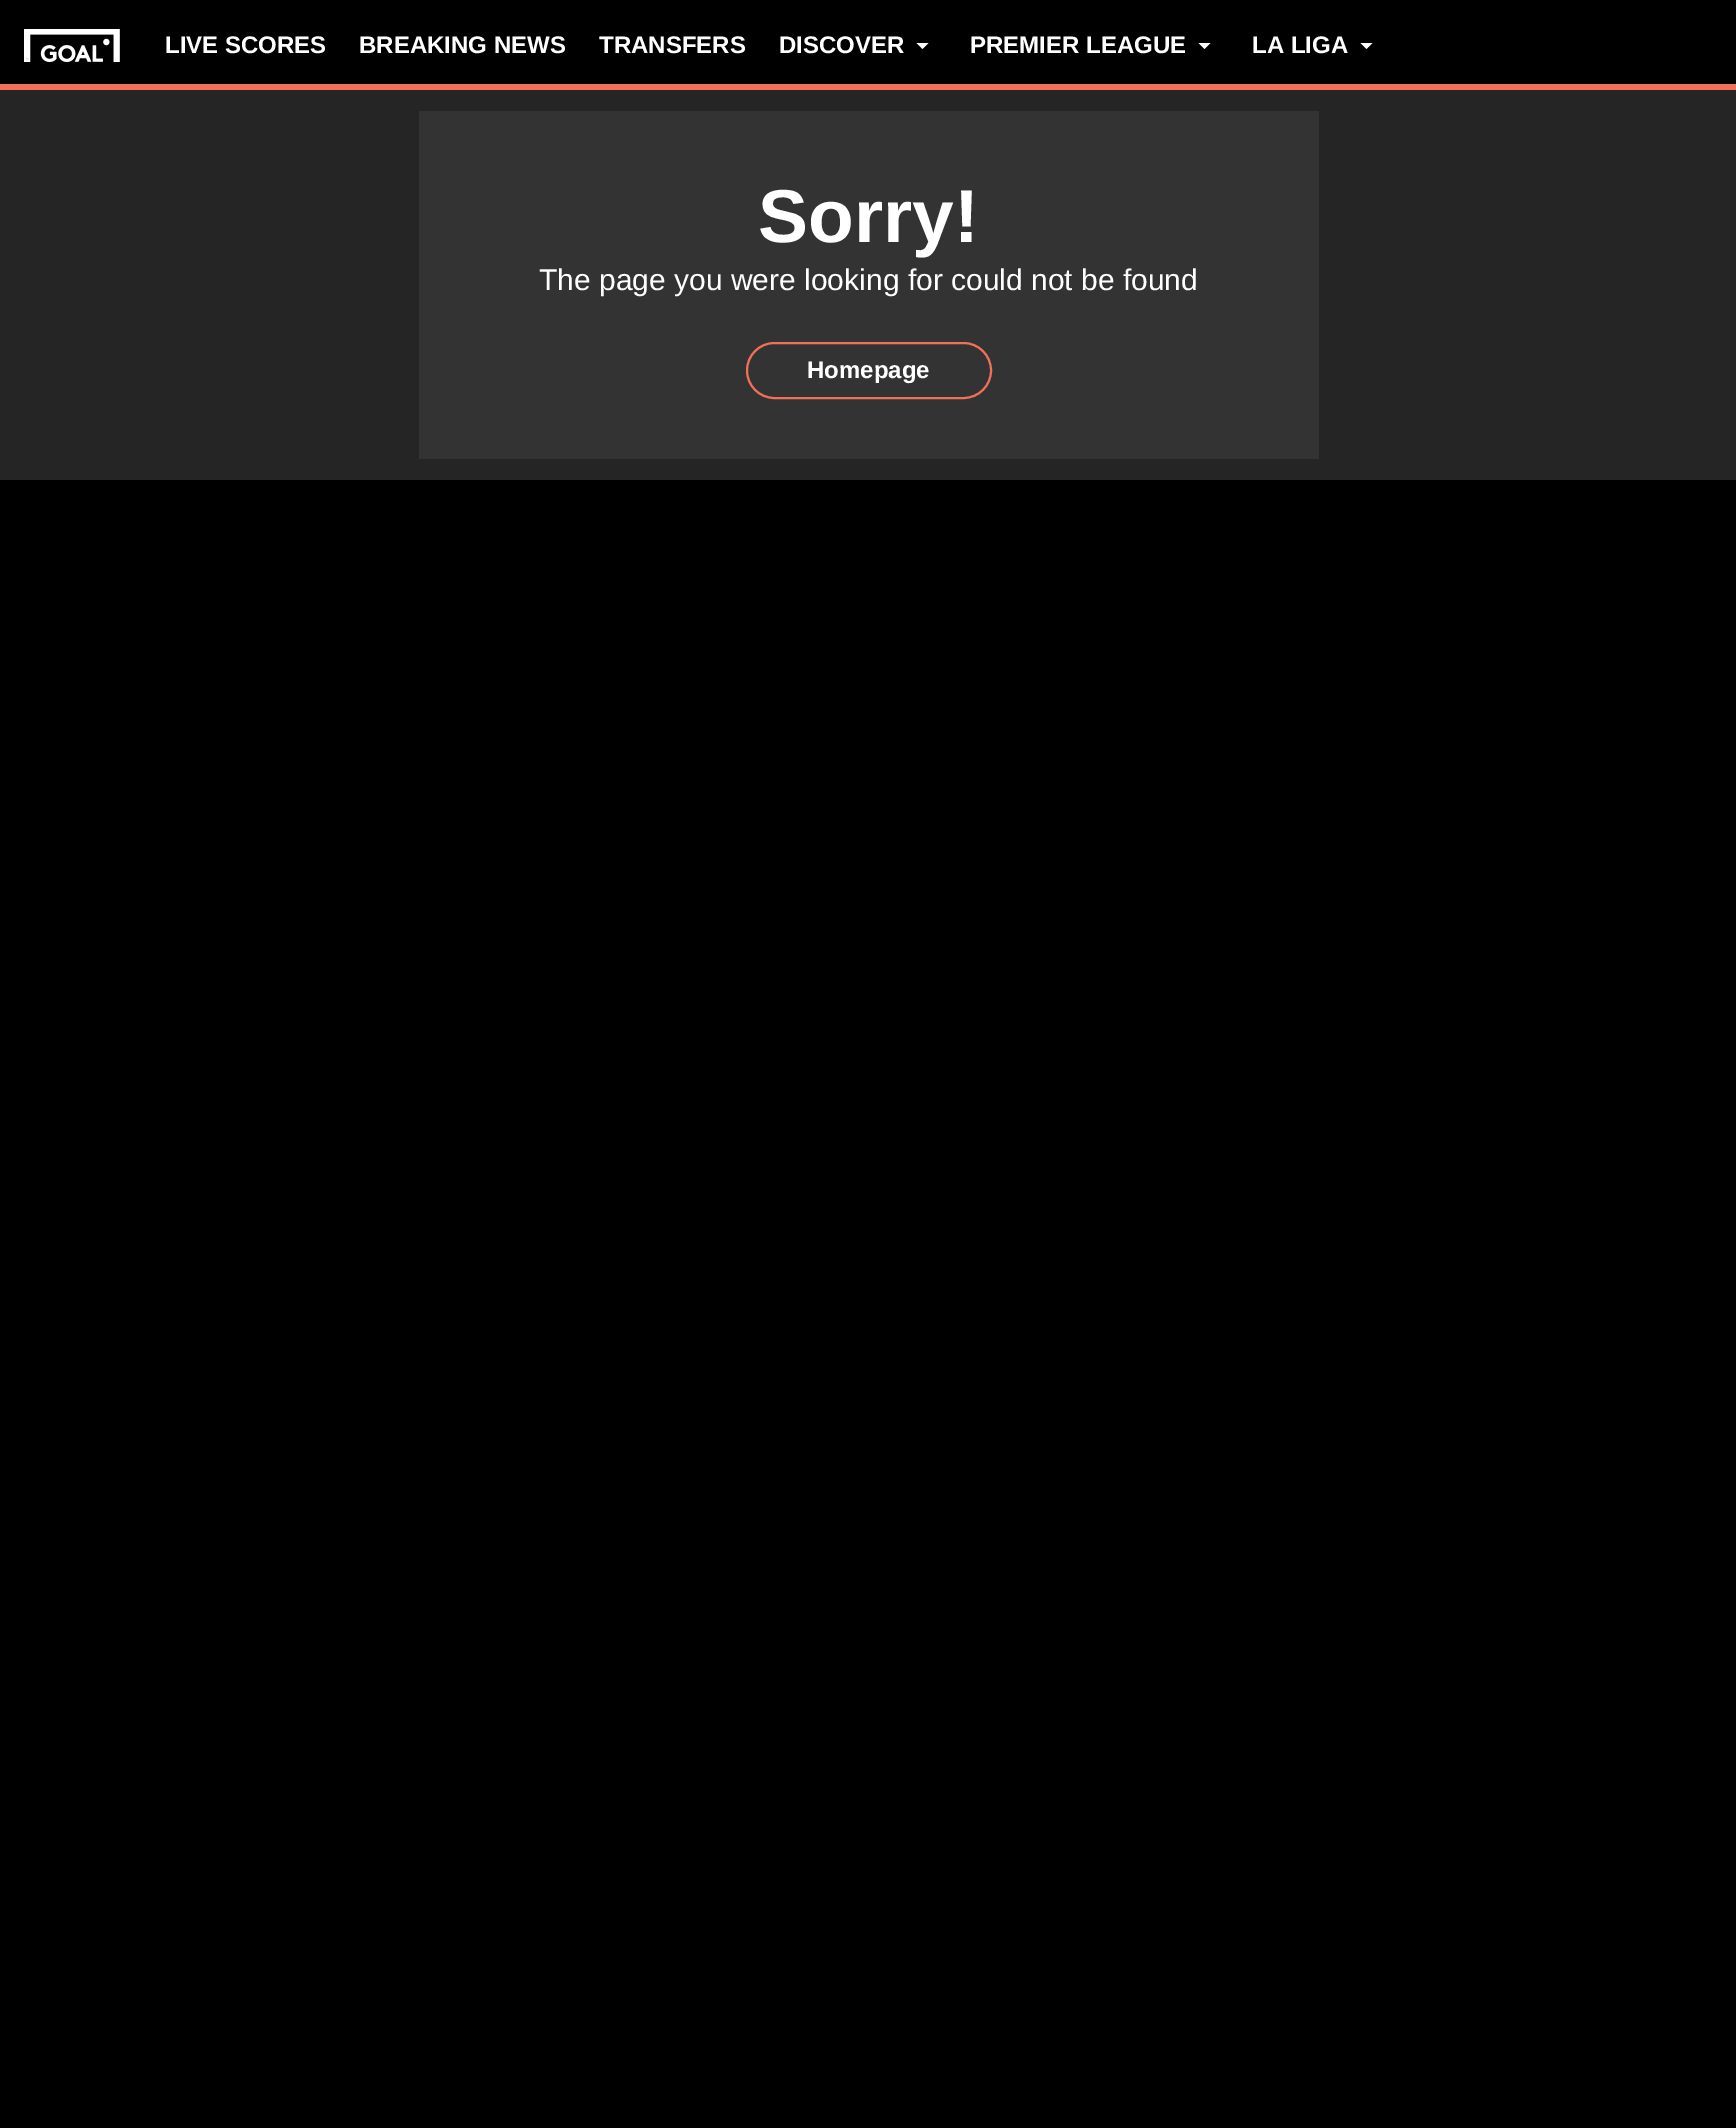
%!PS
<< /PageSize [1736 2128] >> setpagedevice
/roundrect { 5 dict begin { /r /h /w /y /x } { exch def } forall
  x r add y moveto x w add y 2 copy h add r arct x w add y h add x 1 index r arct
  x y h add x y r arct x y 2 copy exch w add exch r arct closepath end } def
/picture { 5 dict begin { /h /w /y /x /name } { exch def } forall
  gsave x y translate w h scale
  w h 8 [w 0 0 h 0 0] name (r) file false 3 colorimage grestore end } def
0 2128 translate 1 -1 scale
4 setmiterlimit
0 setgray
0 0 1736 2128 rectfill
0.145 setgray
0 90 1736 390 rectfill
0.941 0.439 0.353 setrgbcolor
0 84 1736 6 rectfill
(img1.rgb) 24 29 96 33 picture
/LiberationSans-Bold [24 0 0 -24 0 0] selectfont
1 setgray
165 53 moveto (LIVE SCORES) show
359 53 moveto (BREAKING NEWS) show
599 53 moveto (TRANSFERS) show
779 53 moveto (DISCOVER) show
newpath 916.5 43 moveto 922.5 49 lineto 928.5 43 lineto closepath fill
970 53 moveto (PREMIER LEAGUE) show
newpath 1198.5 43 moveto 1204.5 49 lineto 1210.5 43 lineto closepath fill
1252 53 moveto (LA LIGA) show
newpath 1360.5 43 moveto 1366.5 49 lineto 1372.5 43 lineto closepath fill
0.2 setgray
419 111 900 348 rectfill
/LiberationSans-Bold [75 0 0 -75 0 0] selectfont
1 setgray
758 242 moveto (Sorry!) show
/LiberationSans-Regular [30 0 0 -30 0 0] selectfont
539 290 moveto (The page you were looking for could not be found) show
0.941 0.439 0.353 setrgbcolor
2 setlinewidth
747 343 244 55 27.5 roundrect stroke
/LiberationSans-Bold [24 0 0 -24 0 0] selectfont
1 setgray
807 378 moveto (Homepage) show
showpage
